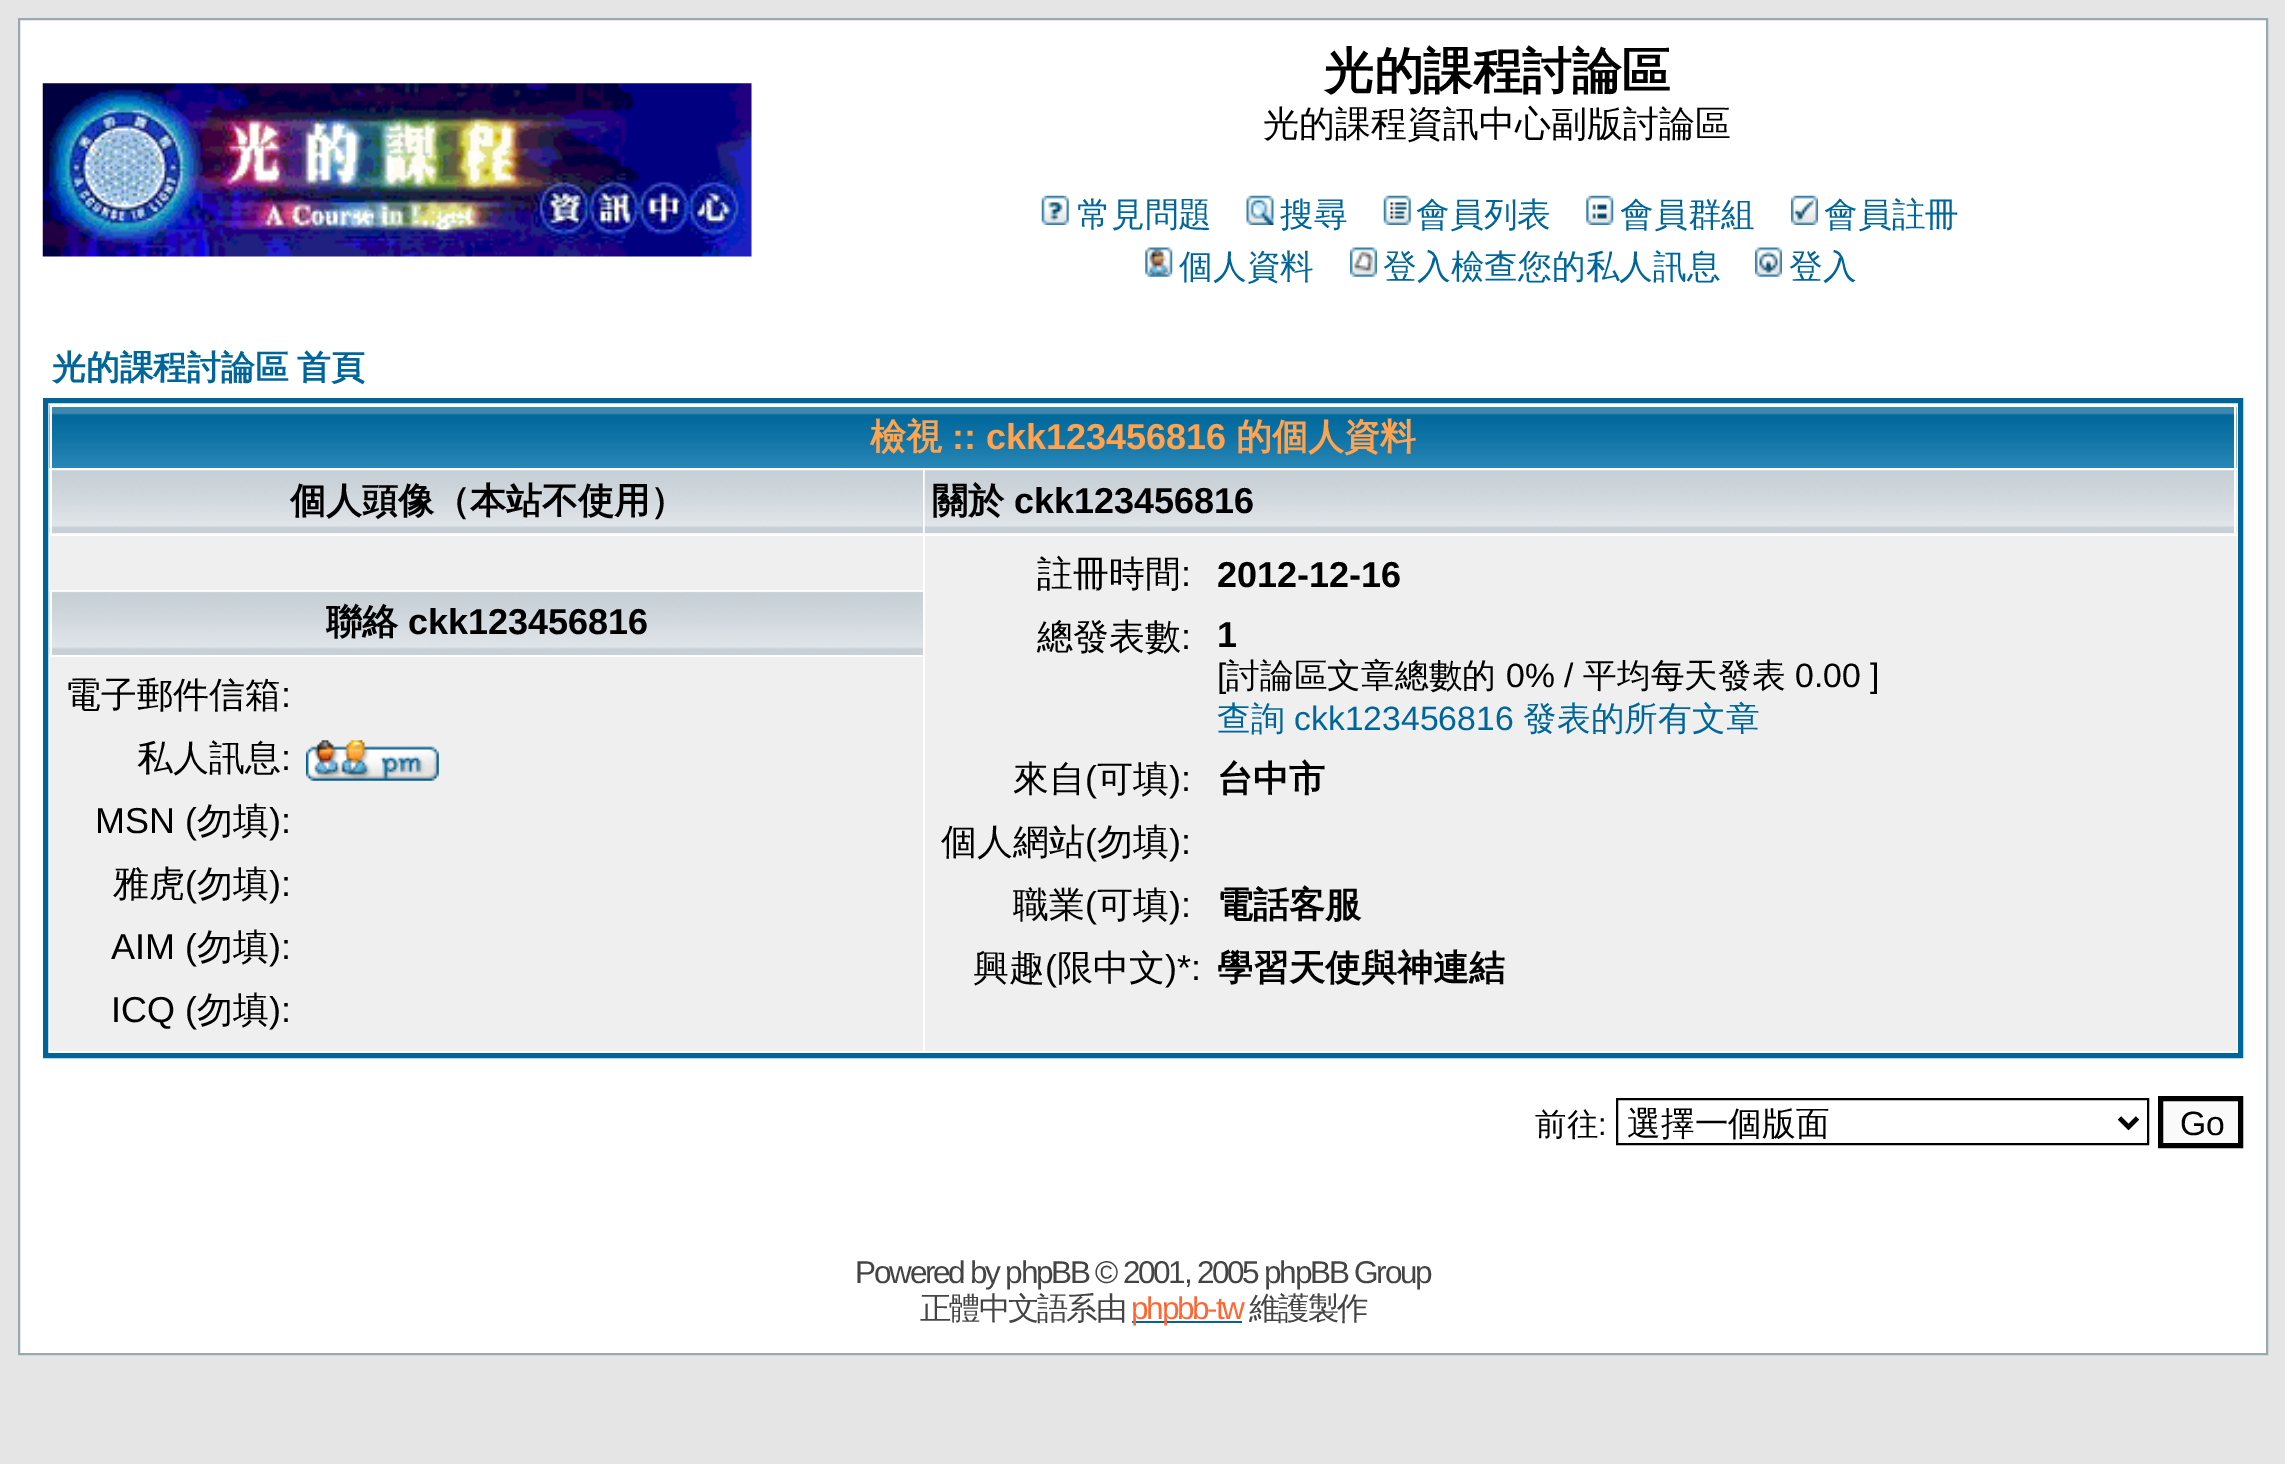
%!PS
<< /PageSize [2285 1464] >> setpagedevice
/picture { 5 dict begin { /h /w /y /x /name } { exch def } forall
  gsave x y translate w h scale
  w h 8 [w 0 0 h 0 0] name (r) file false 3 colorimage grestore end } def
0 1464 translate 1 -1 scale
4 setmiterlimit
0.898 setgray
0 0 2285 1464 rectfill
1 setgray
newpath 19 19 moveto 2267 19 lineto 2267 1354 lineto 19 1354 lineto closepath gsave fill grestore
0.596 0.667 0.694 setrgbcolor
2 setlinewidth
stroke
(img1.rgb) 42 83 710 174 picture
/WenQuanYiZenHei-Bold [49.5 0 0 -49.5 0 0] selectfont
0 setgray
1324 88 moveto (光的課程討論區) show
/WenQuanYiZenHei-Medium [36 0 0 -36 0 0] selectfont
1263 136 moveto (光的課程資訊中心副版討論區) show
(img2.rgb) 1041 195 28 30 picture
/WenQuanYiZenHei-Medium [33.75 0 0 -33.75 0 0] selectfont
0 0.4 0.6 setrgbcolor
1077 226 moveto (常見問題) show
(img3.rgb) 1246 195 28 30 picture
1280 226 moveto (搜尋) show
(img4.rgb) 1383 195 28 30 picture
1416 226 moveto (會員列表) show
(img5.rgb) 1586 195 28 30 picture
1620 226 moveto (會員群組) show
(img6.rgb) 1791 195 27 30 picture
1824 226 moveto (會員註冊) show
(img7.rgb) 1145 247 28 30 picture
1179 278 moveto (個人資料) show
(img8.rgb) 1350 247 27 30 picture
1383 278 moveto (登入檢查您的私人訊息) show
(img9.rgb) 1755 247 27 30 picture
1789 278 moveto (登入) show
/WenQuanYiZenHei-Bold [33.75 0 0 -33.75 0 0] selectfont
52 379 moveto -1 0 32 (光的課程討論區 首頁) widthshow
5 setlinewidth
45.5 400.5 2195 655 rectstroke
(img10.rgb) 49 405 2188 63 picture
1 setgray
50 405 2187 2 rectfill
2234 405 2 63 rectfill
50 405 2 63 rectfill
/WenQuanYiZenHei-Bold [36 0 0 -36 0 0] selectfont
1 0.639 0.31 setrgbcolor
870 449 moveto (檢視) show
/LiberationSans-Bold [36 0 0 -36 0 0] selectfont
952 449 moveto (:: ckk123456816) show
/WenQuanYiZenHei-Bold [36 0 0 -36 0 0] selectfont
1236 449 moveto (的個人資料) show
0.82 0.843 0.863 setrgbcolor
52 470 871 63 rectfill
(img11.rgb) 49 470 874 64 picture
1 setgray
50 470 2 63 rectfill
0 setgray
290 513 moveto (個人頭像（本站不使用）) show
(img12.rgb) 924 470 1313 64 picture
1 setgray
2234 470 2 63 rectfill
0 setgray
932 513 moveto (關於) show
/LiberationSans-Bold [36 0 0 -36 0 0] selectfont
1014 513 moveto (ckk123456816) show
0.82 0.843 0.863 setrgbcolor
52 592 871 63 rectfill
(img13.rgb) 49 591 874 64 picture
1 setgray
50 592 2 63 rectfill
/WenQuanYiZenHei-Bold [36 0 0 -36 0 0] selectfont
0 setgray
326 634 moveto (聯絡) show
/LiberationSans-Bold [36 0 0 -36 0 0] selectfont
408 634 moveto (ckk123456816) show
0.937 setgray
50 536 873 54 rectfill
925 536 1312 515 rectfill
/WenQuanYiZenHei-Medium [36 0 0 -36 0 0] selectfont
0 setgray
1037 586 moveto (註冊時間) show
/LiberationSans-Regular [36 0 0 -36 0 0] selectfont
1181 586 moveto (:) show
/LiberationSans-Bold [36 0 0 -36 0 0] selectfont
1217 587 moveto (2012-12-16) show
/WenQuanYiZenHei-Medium [36 0 0 -36 0 0] selectfont
1037 649 moveto (總發表數) show
/LiberationSans-Regular [36 0 0 -36 0 0] selectfont
1181 649 moveto (:) show
/LiberationSans-Bold [36 0 0 -36 0 0] selectfont
1217 647 moveto (1) show
/LiberationSans-Regular [33.75 0 0 -33.75 0 0] selectfont
1217 687 moveto ([) show
/WenQuanYiZenHei-Medium [33.75 0 0 -33.75 0 0] selectfont
1226 687 moveto (討論區文章總數的) show
/LiberationSans-Regular [33.75 0 0 -33.75 0 0] selectfont
1506 687 moveto (0% /) show
/WenQuanYiZenHei-Medium [33.75 0 0 -33.75 0 0] selectfont
1583 687 moveto (平均每天發表) show
/LiberationSans-Regular [33.75 0 0 -33.75 0 0] selectfont
1795 687 moveto (0.00 ]) show
/WenQuanYiZenHei-Medium [33.75 0 0 -33.75 0 0] selectfont
0 0.4 0.6 setrgbcolor
1217 730 moveto (查詢) show
/LiberationSans-Regular [33.75 0 0 -33.75 0 0] selectfont
1294 730 moveto (ckk123456816) show
/WenQuanYiZenHei-Medium [33.75 0 0 -33.75 0 0] selectfont
1523 730 moveto (發表的所有文章) show
/WenQuanYiZenHei-Medium [36 0 0 -36 0 0] selectfont
0 setgray
1013 791 moveto (來自) show
/LiberationSans-Regular [36 0 0 -36 0 0] selectfont
1085 791 moveto (\() show
/WenQuanYiZenHei-Medium [36 0 0 -36 0 0] selectfont
1097 791 moveto (可填) show
/LiberationSans-Regular [36 0 0 -36 0 0] selectfont
1169 791 moveto (\):) show
/WenQuanYiZenHei-Bold [36 0 0 -36 0 0] selectfont
1217 791 moveto (台中市) show
/WenQuanYiZenHei-Medium [36 0 0 -36 0 0] selectfont
941 854 moveto (個人網站) show
/LiberationSans-Regular [36 0 0 -36 0 0] selectfont
1085 854 moveto (\() show
/WenQuanYiZenHei-Medium [36 0 0 -36 0 0] selectfont
1097 854 moveto (勿填) show
/LiberationSans-Regular [36 0 0 -36 0 0] selectfont
1169 854 moveto (\):) show
/WenQuanYiZenHei-Medium [36 0 0 -36 0 0] selectfont
1013 917 moveto (職業) show
/LiberationSans-Regular [36 0 0 -36 0 0] selectfont
1085 917 moveto (\() show
/WenQuanYiZenHei-Medium [36 0 0 -36 0 0] selectfont
1097 917 moveto (可填) show
/LiberationSans-Regular [36 0 0 -36 0 0] selectfont
1169 917 moveto (\):) show
/WenQuanYiZenHei-Bold [36 0 0 -36 0 0] selectfont
1217 917 moveto (電話客服) show
/WenQuanYiZenHei-Medium [36 0 0 -36 0 0] selectfont
973 980 moveto (興趣) show
/LiberationSans-Regular [36 0 0 -36 0 0] selectfont
1045 980 moveto (\() show
/WenQuanYiZenHei-Medium [36 0 0 -36 0 0] selectfont
1057 980 moveto (限中文) show
/LiberationSans-Regular [36 0 0 -36 0 0] selectfont
1165 980 moveto (\)*:) show
/WenQuanYiZenHei-Bold [36 0 0 -36 0 0] selectfont
1217 980 moveto (學習天使與神連結) show
0.937 setgray
50 657 873 394 rectfill
/WenQuanYiZenHei-Medium [36 0 0 -36 0 0] selectfont
0 setgray
65 707 moveto (電子郵件信箱) show
/LiberationSans-Regular [36 0 0 -36 0 0] selectfont
281 707 moveto (:) show
/WenQuanYiZenHei-Medium [36 0 0 -36 0 0] selectfont
137 770 moveto (私人訊息) show
/LiberationSans-Regular [36 0 0 -36 0 0] selectfont
281 770 moveto (:) show
(img14.rgb) 306 740 133 41 picture
95 833 moveto (MSN \() show
/WenQuanYiZenHei-Medium [36 0 0 -36 0 0] selectfont
197 833 moveto (勿填) show
/LiberationSans-Regular [36 0 0 -36 0 0] selectfont
269 833 moveto (\):) show
/WenQuanYiZenHei-Medium [36 0 0 -36 0 0] selectfont
113 896 moveto (雅虎) show
/LiberationSans-Regular [36 0 0 -36 0 0] selectfont
185 896 moveto (\() show
/WenQuanYiZenHei-Medium [36 0 0 -36 0 0] selectfont
197 896 moveto (勿填) show
/LiberationSans-Regular [36 0 0 -36 0 0] selectfont
269 896 moveto (\):) show
111 959 moveto (AIM \() show
/WenQuanYiZenHei-Medium [36 0 0 -36 0 0] selectfont
197 959 moveto (勿填) show
/LiberationSans-Regular [36 0 0 -36 0 0] selectfont
269 959 moveto (\):) show
111 1022 moveto (ICQ \() show
/WenQuanYiZenHei-Medium [36 0 0 -36 0 0] selectfont
197 1022 moveto (勿填) show
/LiberationSans-Regular [36 0 0 -36 0 0] selectfont
269 1022 moveto (\):) show
/WenQuanYiZenHei-Medium [31.5 0 0 -31.5 0 0] selectfont
1535 1135 moveto (前往) show
/LiberationSans-Regular [31.5 0 0 -31.5 0 0] selectfont
1598 1135 moveto (:) show
2 setlinewidth
1617 1099 531 45 rectstroke
4.5 setlinewidth
newpath 2119.5 1118 moveto 2128.5 1127 lineto 2137.5 1118 lineto stroke
/WenQuanYiZenHei-Medium [33.75 0 0 -33.75 0 0] selectfont
1627 1135 moveto (選擇一個版面) show
0.98 setgray
newpath 2160.5 1098.5 moveto 2240.5 1098.5 lineto 2240.5 1145.5 lineto 2160.5 1145.5 lineto closepath gsave fill grestore
0 setgray
5 setlinewidth
stroke
/LiberationSans-Regular [33.75 0 0 -33.75 0 0] selectfont
2180 1135 moveto (Go) show
/LiberationSans-Regular [31.5 0 0 -31.5 0 0] selectfont
0.267 setgray
855 1283 moveto -2.25 0 (Powered by phpBB © 2001, 2005 phpBB Group) ashow
/WenQuanYiZenHei-Medium [31.5 0 0 -31.5 0 0] selectfont
920 1319 moveto -2.25 0 (正體中文語系由) ashow
0 0.4 0.6 setrgbcolor
1132 1321 110 2 rectfill
/LiberationSans-Regular [31.5 0 0 -31.5 0 0] selectfont
1 0.4 0.2 setrgbcolor
1131 1319 moveto -2.25 0 (phpbb-tw) ashow
/WenQuanYiZenHei-Medium [31.5 0 0 -31.5 0 0] selectfont
0.267 setgray
1249 1319 moveto -2.25 0 (維護製作) ashow
showpage
